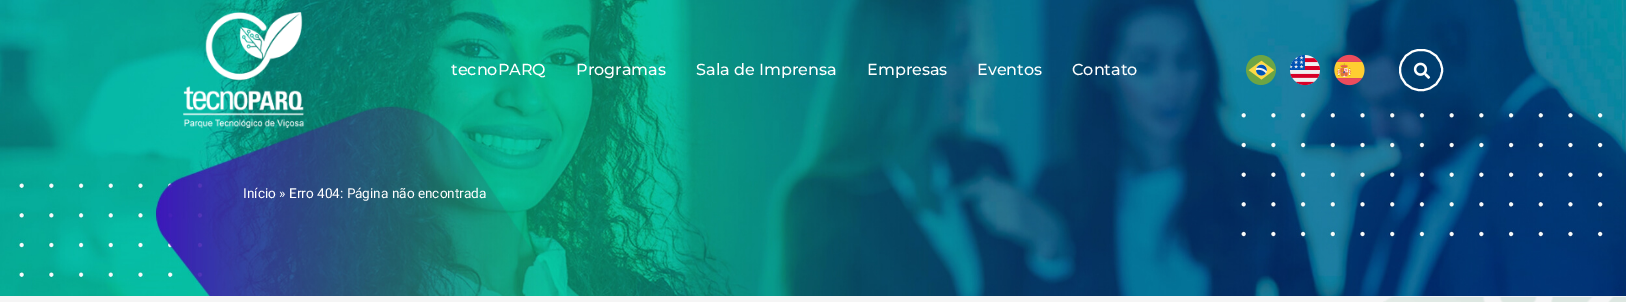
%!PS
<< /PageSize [1626 302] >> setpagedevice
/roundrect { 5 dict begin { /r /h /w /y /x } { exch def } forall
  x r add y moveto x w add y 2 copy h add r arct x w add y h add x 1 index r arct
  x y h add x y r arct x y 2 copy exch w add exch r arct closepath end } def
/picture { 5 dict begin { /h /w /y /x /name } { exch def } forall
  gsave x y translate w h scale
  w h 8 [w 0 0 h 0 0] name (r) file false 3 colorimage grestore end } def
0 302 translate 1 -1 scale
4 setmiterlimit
0.961 setgray
0 0 1626 302 rectfill
(img6.rgb) 0 0 1626 296 picture
(img1.rgb) 183 12 121 116 picture
/Montserrat-Medium [16 0 0 -16 0 0] selectfont
1 setgray
451 75 moveto (tecnoPARQ) show
576 75 moveto (Programas) show
696 75 moveto (Sala de Imprensa) show
867 75 moveto (Empresas) show
977 75 moveto (Eventos) show
1072 75 moveto (Contato) show
(img2.rgb) 1246 55 30 30 picture
(img3.rgb) 1289 54 32 32 picture
(img4.rgb) 1334 54 31 32 picture
2 setlinewidth
1400 50 42 40 20 roundrect stroke
(img5.rgb) 1413 62 18 17 picture
/Roboto-Regular [13.6 0 0 -13.6 0 0] selectfont
243 198 moveto (Início » Erro 404: Página não encontrada) show
(img7.rgb) 1383 297 243 5 picture
showpage
